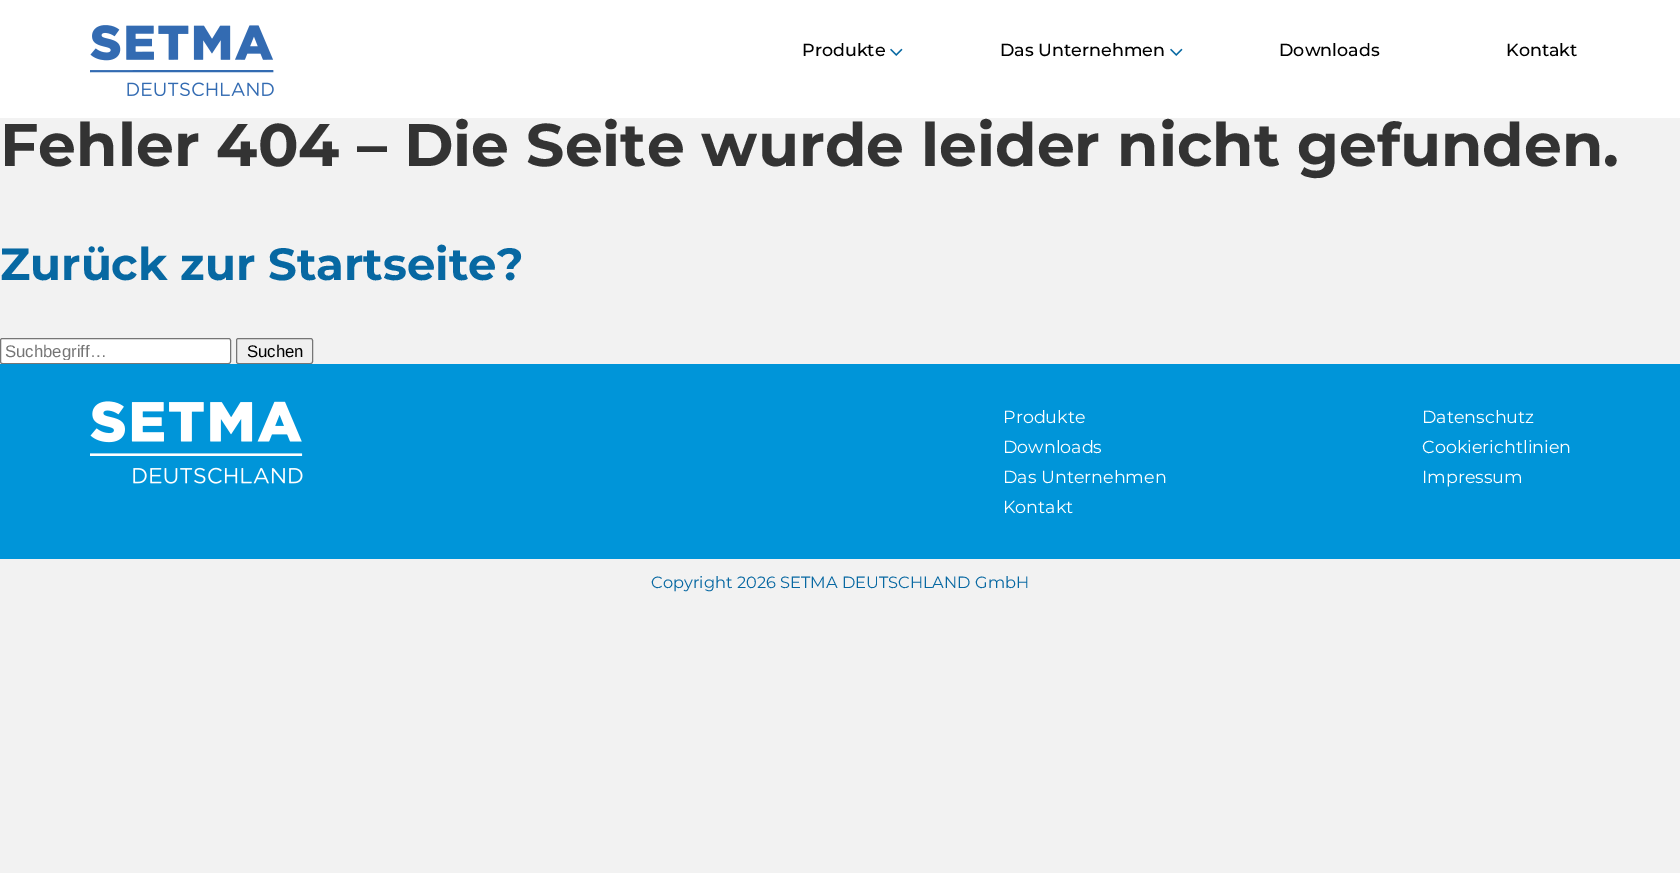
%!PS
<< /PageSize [1680 873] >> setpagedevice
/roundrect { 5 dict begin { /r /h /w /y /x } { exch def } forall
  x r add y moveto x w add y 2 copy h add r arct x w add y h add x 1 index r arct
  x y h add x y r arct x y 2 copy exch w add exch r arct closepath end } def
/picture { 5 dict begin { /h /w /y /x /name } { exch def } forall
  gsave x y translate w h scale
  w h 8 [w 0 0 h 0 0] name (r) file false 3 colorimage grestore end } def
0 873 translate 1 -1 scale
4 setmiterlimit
0.949 setgray
0 0 1680 873 rectfill
1 setgray
0 0 1680 118 rectfill
(img1.rgb) 90 25 184 71 picture
/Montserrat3-Thin [17.5 0 0 -17.5 0 0] selectfont
0 setgray
802 56 moveto (Produkte) show
(img2.rgb) 890 48 13 8 picture
1000 56 moveto (Das Unternehmen) show
(img2.rgb) 1170 48 13 8 picture
1279 56 moveto (Downloads) show
1506 56 moveto (Kontakt) show
/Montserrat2-Thin [60 0 0 -60 0 0] selectfont
0.2 setgray
0 166 moveto (Fehler 404 – Die Seite wurde leider nicht gefunden.) show
/Montserrat2-Thin [45 0 0 -45 0 0] selectfont
0.027 0.408 0.635 setrgbcolor
0 280 moveto (Zurück zur Startseite?) show
1 setgray
0.5 338.5 230 25 2 roundrect gsave fill grestore
0.463 setgray
stroke
gsave
5 341 205 19 rectclip
/LiberationSans-Regular [16.75 0 0 -16.75 0 0] selectfont
0.459 setgray
5 357 moveto (Suchbegriff…) show
grestore
0.937 setgray
236.5 338.5 76 25 2 roundrect gsave fill grestore
0.463 setgray
stroke
/LiberationSans-Regular [16.75 0 0 -16.75 0 0] selectfont
0 setgray
247 357 moveto (Suchen) show
0 0.584 0.851 setrgbcolor
0 364 1680 195 rectfill
(img3.rgb) 90 401 213 83 picture
/Montserrat-Thin [17.5 0 0 -17.5 0 0] selectfont
1 setgray
1003 423 moveto (Produkte) show
1003 453 moveto (Downloads) show
1003 483 moveto (Das Unternehmen) show
1003 513 moveto (Kontakt) show
1422 423 moveto (Datenschutz) show
1422 453 moveto (Cookierichtlinien) show
1422 483 moveto (Impressum) show
/Montserrat-Thin [16.25 0 0 -16.25 0 0] selectfont
0.027 0.408 0.635 setrgbcolor
651 588 moveto (Copyright 2026 SETMA DEUTSCHLAND GmbH) show
showpage
